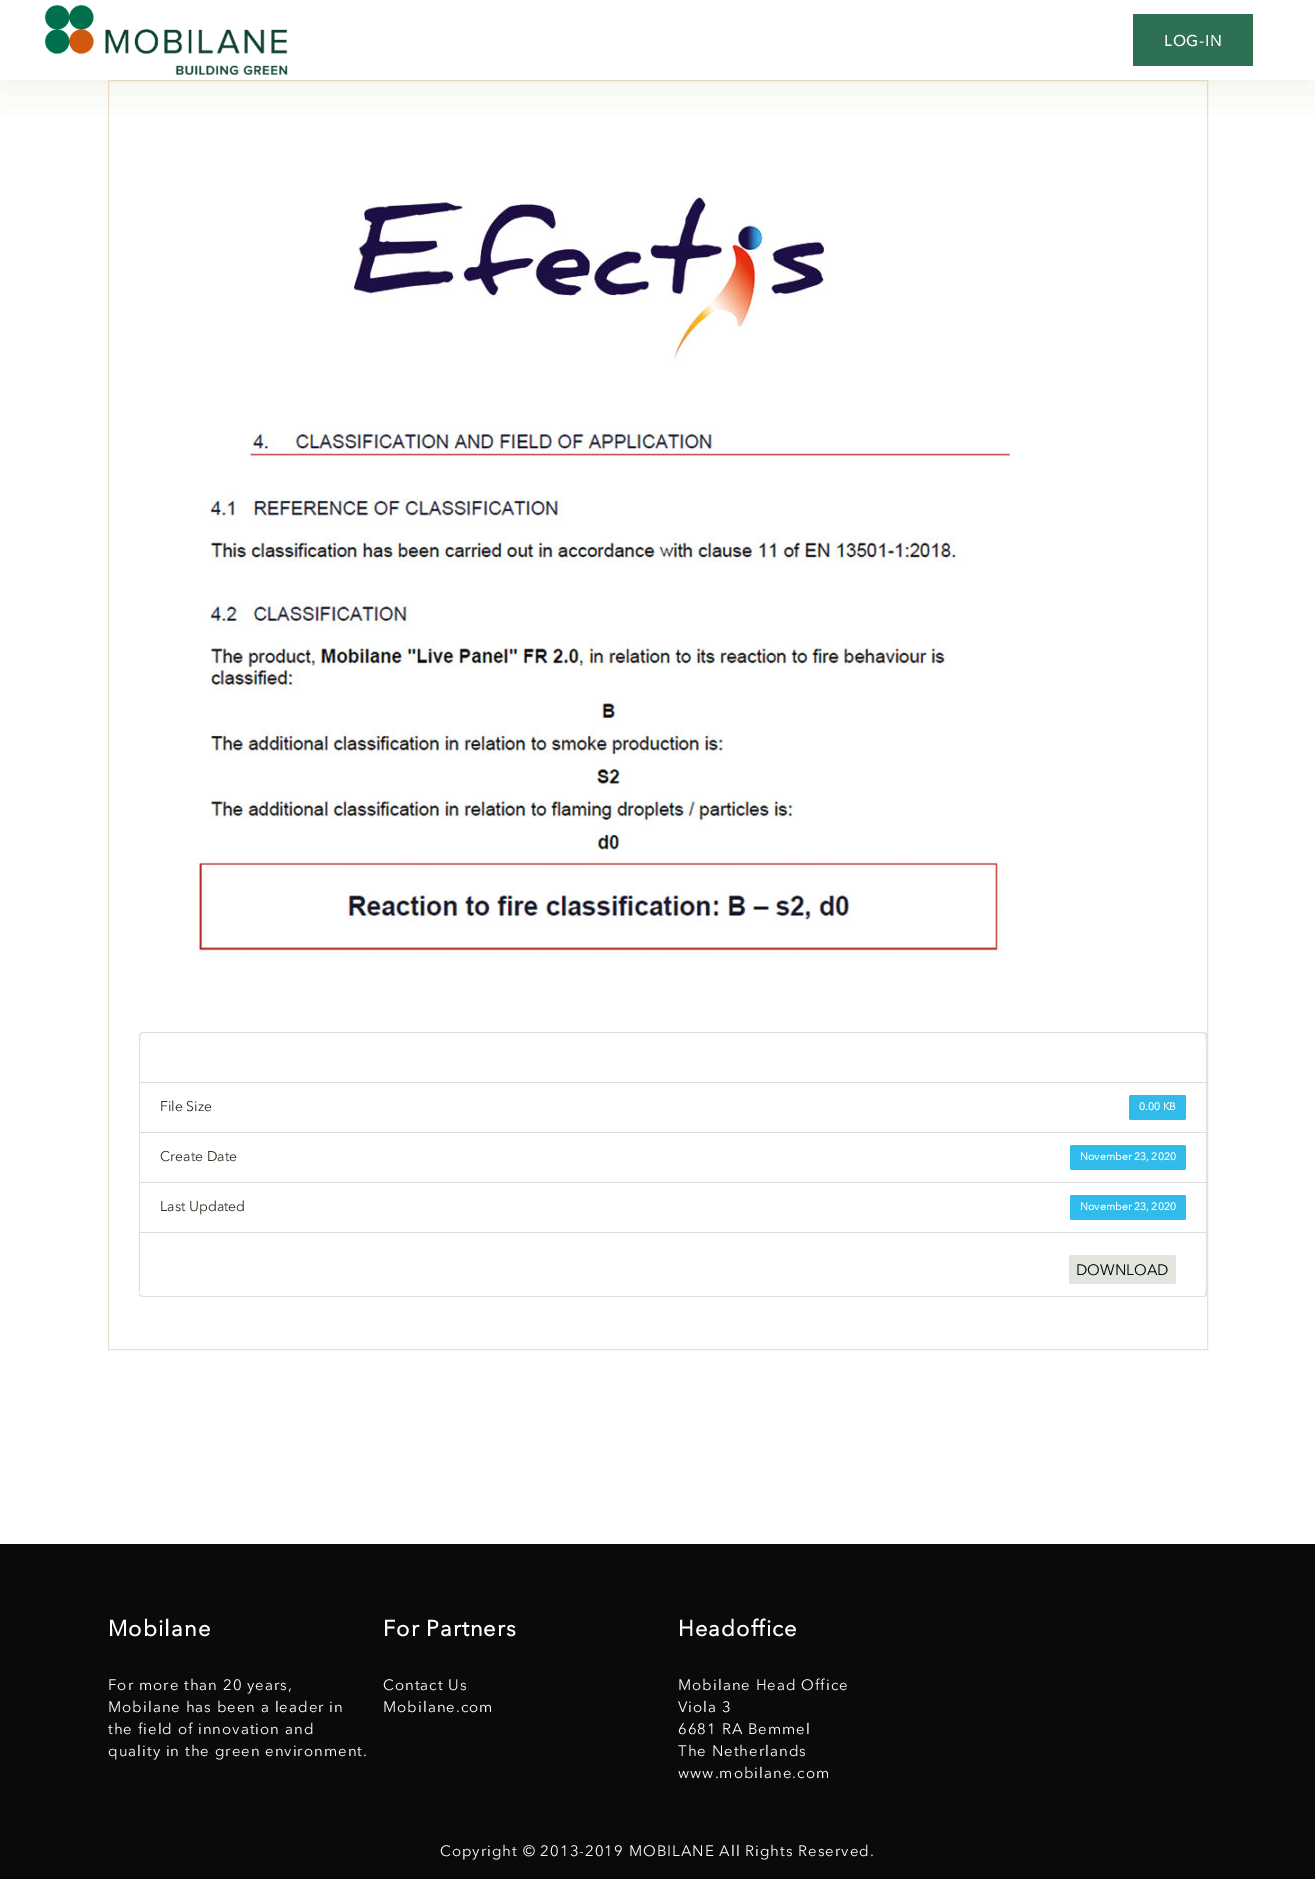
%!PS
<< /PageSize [1315 1879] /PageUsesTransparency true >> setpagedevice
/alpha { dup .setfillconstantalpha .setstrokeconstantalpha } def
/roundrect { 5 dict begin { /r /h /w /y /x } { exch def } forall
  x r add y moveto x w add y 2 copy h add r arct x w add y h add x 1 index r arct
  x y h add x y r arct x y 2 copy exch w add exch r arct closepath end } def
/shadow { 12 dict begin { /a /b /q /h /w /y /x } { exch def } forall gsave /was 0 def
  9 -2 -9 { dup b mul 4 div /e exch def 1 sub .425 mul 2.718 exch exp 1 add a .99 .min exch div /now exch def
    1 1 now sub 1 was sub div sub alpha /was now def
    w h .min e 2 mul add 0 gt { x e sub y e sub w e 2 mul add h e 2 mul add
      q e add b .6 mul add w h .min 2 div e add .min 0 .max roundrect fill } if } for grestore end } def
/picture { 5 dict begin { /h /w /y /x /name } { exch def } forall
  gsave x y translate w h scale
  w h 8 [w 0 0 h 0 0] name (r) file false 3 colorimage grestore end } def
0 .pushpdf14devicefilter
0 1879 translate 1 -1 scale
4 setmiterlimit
1 setgray
0 0 1315 1879 rectfill
0.925 0.882 0.796 setrgbcolor
108.5 80.5 1099 1269 rectstroke
gsave
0 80 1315 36 rectclip
0.69 0.62 0.475 setrgbcolor
1 10 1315 80 0 23 0.16 shadow
grestore
(img1.rgb) 45 5 243 70 picture
0.18 0.439 0.329 setrgbcolor
1133 14 120 52 rectfill
/AvenirNext-Bold [15 0 0 -15 0 0] selectfont
1 setgray
1164 46 moveto 1 0 (LOG-IN) ashow
(img2.rgb) 195 194 816 760 picture
0.867 setgray
newpath 143 1032 moveto 140 1033 lineto 141 1034 lineto 143 1033 lineto 1203 1033 lineto 1205 1034 lineto 1206 1033 lineto 1203 1032 lineto closepath fill
0.12 alpha
0 setgray
newpath 1207 1083 moveto 1207 1035 lineto 1206 1033 lineto 1205 1034 lineto 1207 1036 1206 1076 1206 1082 curveto closepath fill
newpath 139 1083 moveto 140 1082 lineto 140 1076 139 1036 141 1034 curveto 140 1033 lineto 139 1036 lineto closepath fill
1 alpha
1 setgray
139 1082 1068 1 rectfill
0.867 setgray
newpath 139 1082 moveto 1207 1082 lineto 1206 1083 lineto 140 1083 lineto closepath fill
0.12 alpha
0 setgray
newpath 1207 1082 moveto 1207 1133 lineto 1206 1132 lineto 1206 1083 lineto closepath fill
newpath 139 1133 moveto 139 1082 lineto 140 1083 lineto 140 1132 lineto closepath fill
/AvenirNext-Regular [14 0 0 -14 0 0] selectfont
1 alpha
0.153 0.184 0.122 setrgbcolor
160 1111 moveto (File Size) show
0.188 0.733 0.918 setrgbcolor
1129 1095 57 25 2 roundrect fill
/AvenirNext-Bold [10.5 0 0 -10.5 0 0] selectfont
1 setgray
1139 1110 moveto (0.00 KB) show
139 1132 1068 1 rectfill
0.867 setgray
newpath 139 1132 moveto 1207 1132 lineto 1206 1133 lineto 140 1133 lineto closepath fill
0.12 alpha
0 setgray
newpath 1207 1132 moveto 1207 1183 lineto 1206 1182 lineto 1206 1133 lineto closepath fill
newpath 139 1183 moveto 139 1132 lineto 140 1133 lineto 140 1182 lineto closepath fill
/AvenirNext-Regular [14 0 0 -14 0 0] selectfont
1 alpha
0.153 0.184 0.122 setrgbcolor
160 1161 moveto (Create Date) show
0.188 0.733 0.918 setrgbcolor
1070 1145 116 25 2 roundrect fill
/AvenirNext-Bold [10.5 0 0 -10.5 0 0] selectfont
1 setgray
1080 1160 moveto (November 23, 2020) show
139 1182 1068 1 rectfill
0.867 setgray
newpath 139 1182 moveto 1207 1182 lineto 1206 1183 lineto 140 1183 lineto closepath fill
0.12 alpha
0 setgray
newpath 1207 1182 moveto 1207 1233 lineto 1206 1232 lineto 1206 1183 lineto closepath fill
newpath 139 1233 moveto 139 1182 lineto 140 1183 lineto 140 1232 lineto closepath fill
/AvenirNext-Regular [14 0 0 -14 0 0] selectfont
1 alpha
0.153 0.184 0.122 setrgbcolor
160 1211 moveto (Last Updated) show
0.188 0.733 0.918 setrgbcolor
1070 1195 116 25 2 roundrect fill
/AvenirNext-Bold [10.5 0 0 -10.5 0 0] selectfont
1 setgray
1080 1210 moveto (November 23, 2020) show
newpath 139 1232 moveto 1207 1232 lineto 1207 1294 lineto 1207 1295.5 1205.5 1297 1204 1297 curveto 142 1297 lineto 140.5 1297 139 1295.5 139 1294 curveto closepath fill
0.867 setgray
newpath 139 1232 moveto 140 1233 lineto 1206 1233 lineto 1207 1232 lineto closepath fill
0.12 alpha
0 setgray
newpath 1207 1232 moveto 1206 1233 lineto 1206 1240 1207 1294 1205 1295 curveto 1206 1296 lineto 1207 1294 lineto closepath fill
newpath 142 1297 moveto 1204 1297 lineto 1206 1296 lineto 1205 1295 lineto 1204 1296 lineto 142 1296 lineto 141 1295 lineto 140 1296 lineto closepath fill
newpath 140 1233 moveto 139 1232 lineto 139 1239 138 1295 140 1296 curveto 141 1295 lineto 140 1294 lineto closepath fill
1 alpha
0.878 0.898 0.867 setrgbcolor
1069 1255 107 29 2 roundrect fill
/AvenirNext-Regular [15 0 0 -15 0 0] selectfont
0 setgray
1076 1275 moveto (DOWNLOAD) show
0.039 setgray
0 1544 1315 335 rectfill
/AvenirNext-Bold [22 0 0 -22 0 0] selectfont
1 setgray
108 1636 moveto 1 0 (Mobilane) ashow
/AvenirNext-Regular [15 0 0 -15 0 0] selectfont
108 1690 moveto 1 0 (For more than 20 years,) ashow
108 1712 moveto 1 0 (Mobilane has been a leader in) ashow
108 1734 moveto 1 0 (the field of innovation and) ashow
108 1756 moveto 1 0 (quality in the green environment.) ashow
/AvenirNext-Bold [22 0 0 -22 0 0] selectfont
383 1636 moveto 1 0 (For Partners) ashow
/AvenirNext-Regular [15 0 0 -15 0 0] selectfont
383 1690 moveto 1 0 (Contact Us) ashow
383 1712 moveto 1 0 (Mobilane.com) ashow
/AvenirNext-Bold [22 0 0 -22 0 0] selectfont
678 1636 moveto 1 0 (Headoffice) ashow
/AvenirNext-Regular [15 0 0 -15 0 0] selectfont
678 1690 moveto 1 0 (Mobilane Head Office) ashow
678 1712 moveto 1 0 (Viola 3) ashow
678 1734 moveto 1 0 (6681 RA Bemmel) ashow
678 1756 moveto 1 0 (The Netherlands) ashow
678 1778 moveto 1 0 (www.mobilane.com) ashow
440 1856 moveto 1 0 (Copyright © 2013-2019 MOBILANE All Rights Reserved.) ashow
.poppdf14devicefilter showpage
